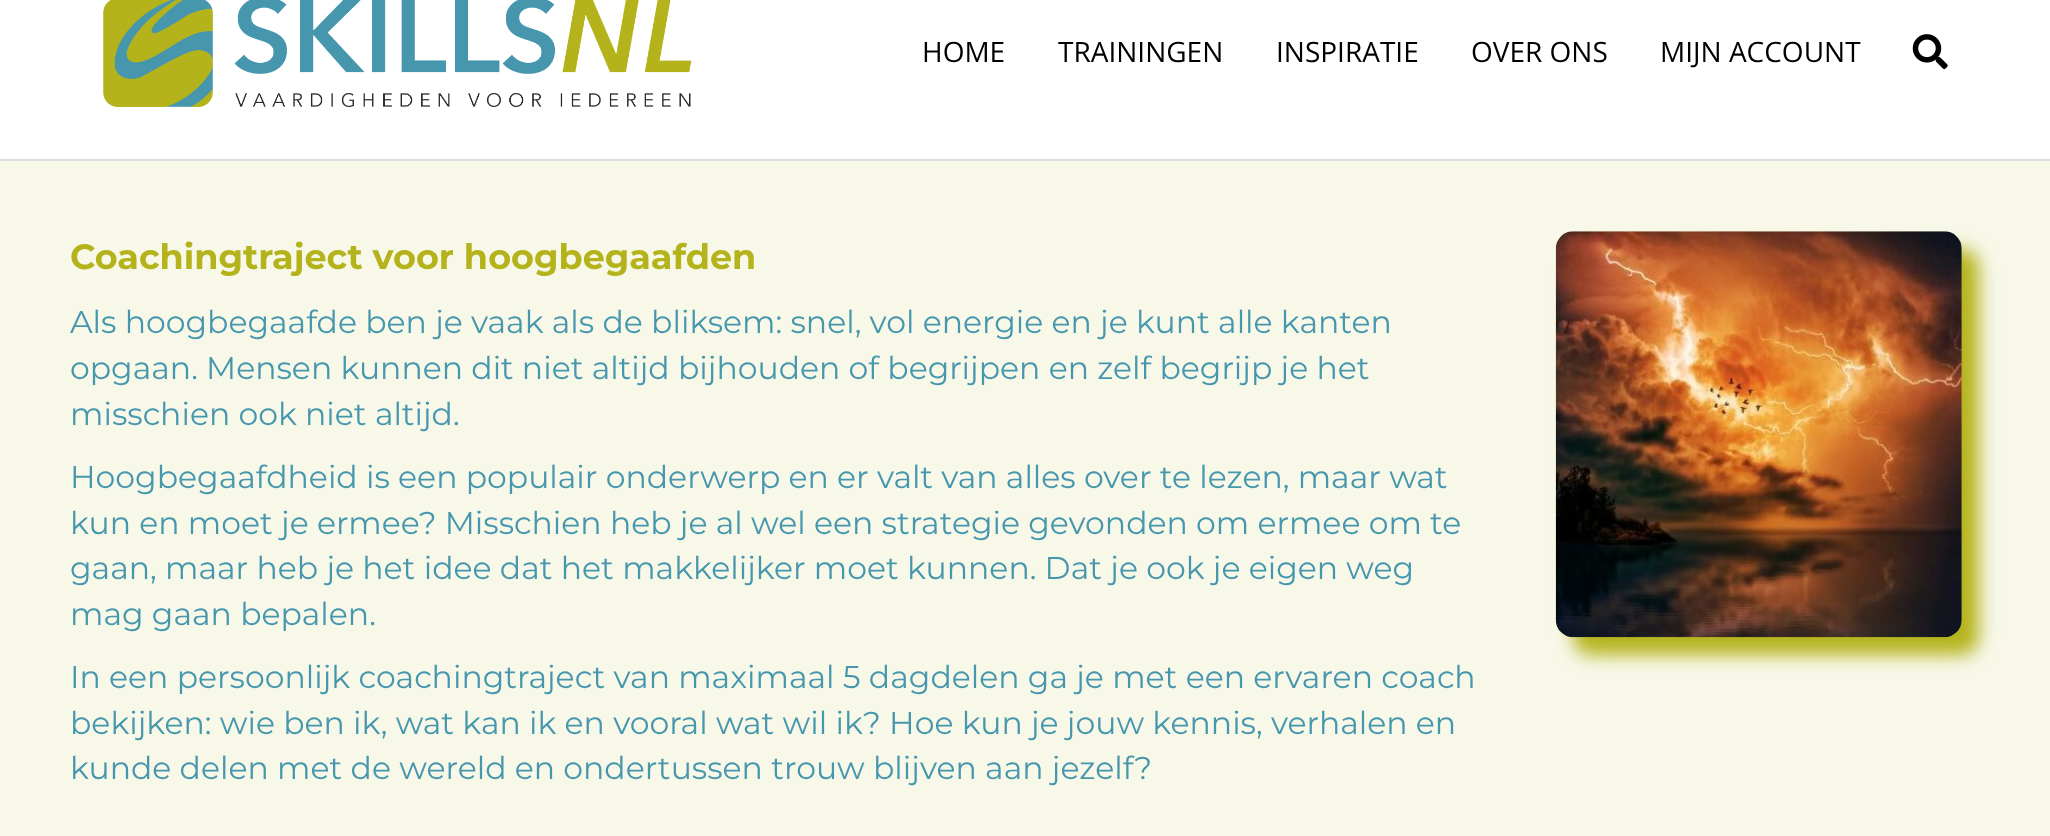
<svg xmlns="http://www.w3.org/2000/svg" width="2050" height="836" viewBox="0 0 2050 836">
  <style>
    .t1 { font: 28px Open Sans; fill: #000; }
    .t2 { font: bold 35px Montserrat; fill: #b4b31c; }
    .t3 { font: 31.5px Montserrat; fill: #4697ae; }
  </style>
  <rect width="100%" height="100%" fill="#fff"/>
  <rect x="0" y="159" width="2050" height="2" fill="#dedede"/>
  <image x="103" y="0" width="589" height="107" href="images/1.png"/>
  <text x="922" y="62" class="t1">HOME</text>
  <text x="1058" y="62" class="t1">TRAININGEN</text>
  <text x="1276" y="62" class="t1">INSPIRATIE</text>
  <text x="1471" y="62" class="t1">OVER ONS</text>
  <text x="1660" y="62" class="t1">MIJN ACCOUNT</text>
  <image x="1912" y="34" width="36" height="36" href="images/2.png"/>
  <rect x="0" y="161" width="2050" height="675" fill="#f8f8e9"/>
  <text x="70" y="269" class="t2">Coachingtraject voor hoogbegaafden</text>
  <text x="70" y="333" class="t3">Als hoogbegaafde ben je vaak als de bliksem: snel, vol energie en je kunt alle kanten</text>
  <text x="70" y="379" class="t3">opgaan. Mensen kunnen dit niet altijd bijhouden of begrijpen en zelf begrijp je het</text>
  <text x="70" y="425" class="t3">misschien ook niet altijd.</text>
  <text x="70" y="488" class="t3">Hoogbegaafdheid is een populair onderwerp en er valt van alles over te lezen, maar wat</text>
  <text x="70" y="534" class="t3">kun en moet je ermee? Misschien heb je al wel een strategie gevonden om ermee om te</text>
  <text x="70" y="579" class="t3">gaan, maar heb je het idee dat het makkelijker moet kunnen. Dat je ook je eigen weg</text>
  <text x="70" y="625" class="t3">mag gaan bepalen.</text>
  <text x="70" y="688" class="t3">In een persoonlijk coachingtraject van maximaal 5 dagdelen ga je met een ervaren coach</text>
  <text x="70" y="734" class="t3">bekijken: wie ben ik, wat kan ik en vooral wat wil ik? Hoe kun je jouw kennis, verhalen en</text>
  <text x="70" y="779" class="t3">kunde delen met de wereld en ondertussen trouw blijven aan jezelf?</text>
  <rect x="1573" y="249" width="406" height="406" rx="18" fill="#b4b31c" filter="blur(9px)"/>
  <image x="1555" y="231" width="407" height="407" href="images/3.png"/>
</svg>
